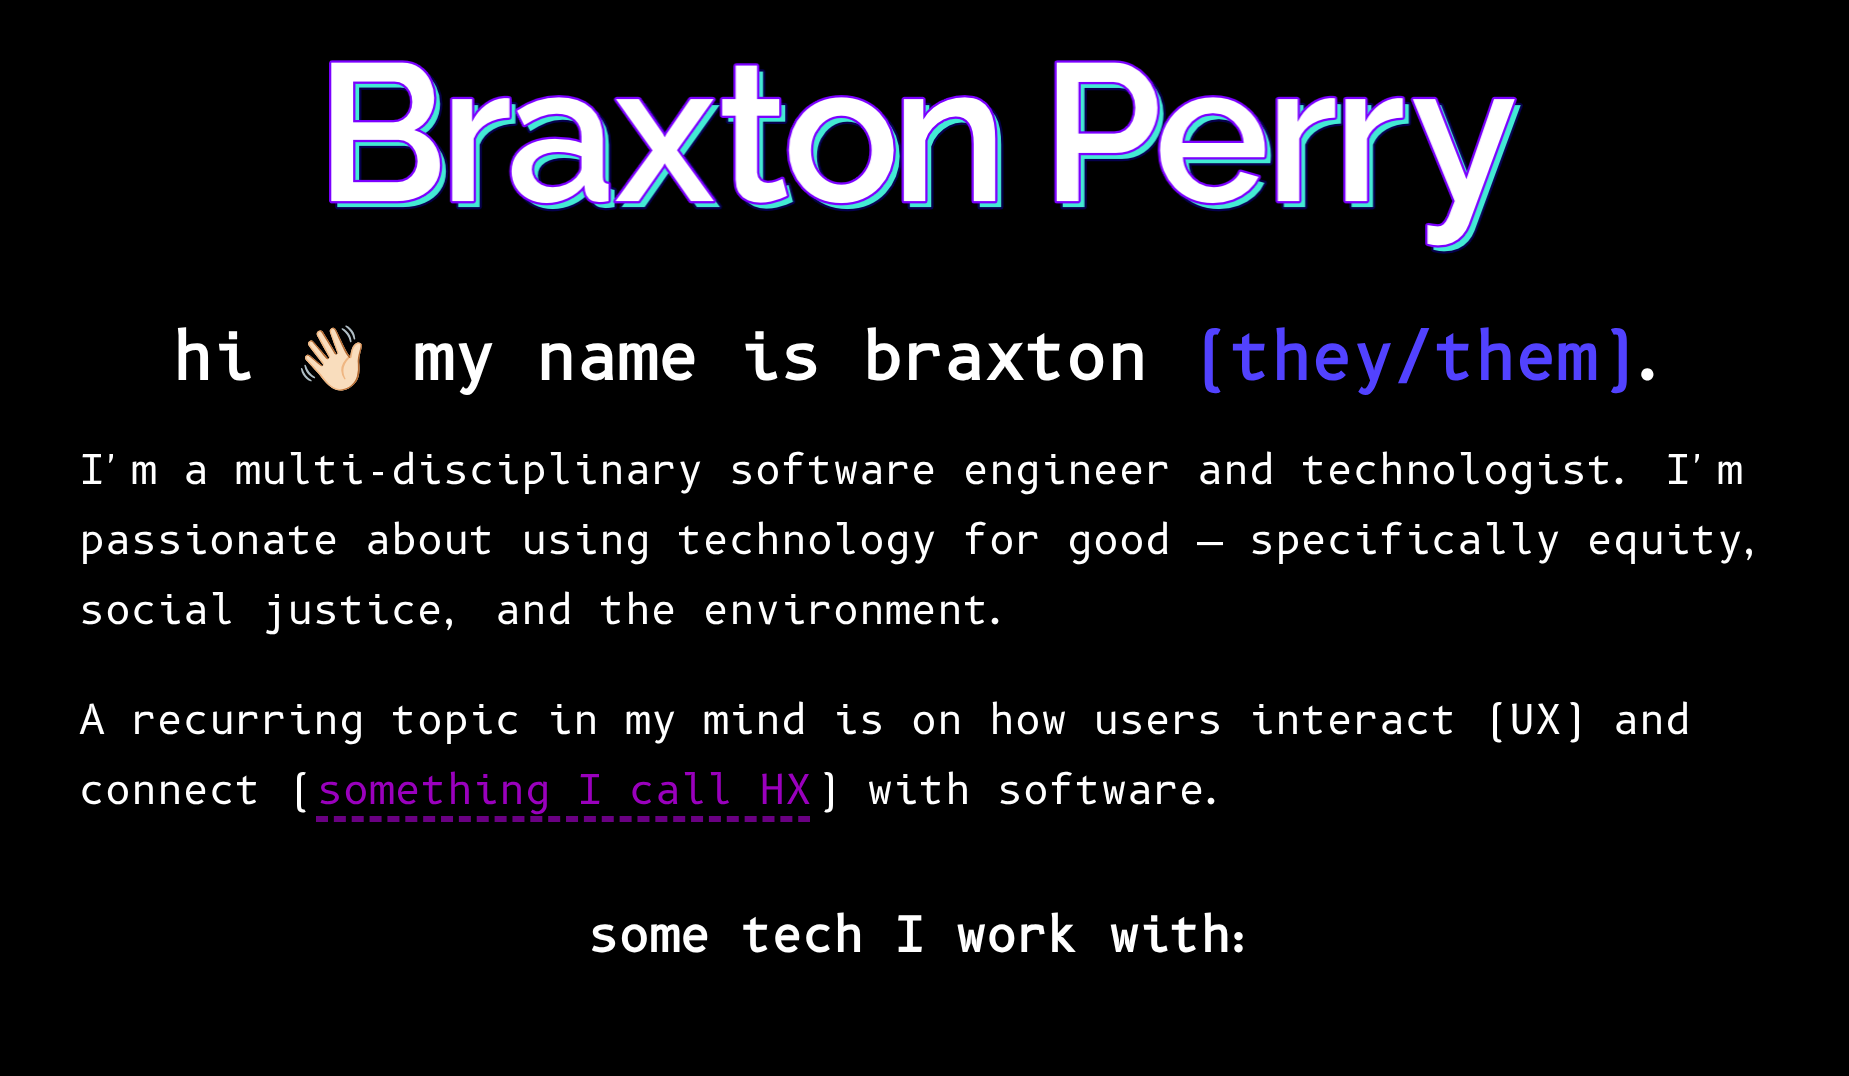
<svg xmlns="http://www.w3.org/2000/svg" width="1849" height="1076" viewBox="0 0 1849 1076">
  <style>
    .t1 { font: bold 62.75px 'B612 Mono'; fill: #fff; }
    .t2 { font: bold 62.75px Noto Color Emoji; fill: #fff; }
    .t3 { font: bold 62.75px 'B612 Mono'; fill: #5242ff; }
    .t4 { font: 40px 'B612 Mono'; fill: #fff; }
    .t5 { font: 40px 'B612 Mono'; fill: #9a00bd; }
    .t6 { font: bold 47.1px 'B612 Mono'; fill: #fff; }
  </style>
  <rect width="100%" height="100%" fill="#000"/>
  <image x="329" y="60" width="1194" height="194" href="images/1.png"/>
  <text x="172" y="380" class="t1">hi</text>
  <text x="294" y="380" class="t2">👋🏻</text>
  <text x="413" y="380" class="t1">my name is braxton</text>
  <text x="1189" y="380" class="t3">(they/them)</text>
  <text x="1637" y="380" class="t1">.</text>
  <text x="79" y="484" class="t4">I'm a multi-disciplinary software engineer and technologist. I'm</text>
  <text x="79" y="554" class="t4">passionate about using technology for good — specifically equity,</text>
  <text x="79" y="624" class="t4">social justice, and the environment.</text>
  <text x="79" y="734" class="t4">A recurring topic in my mind is on how users interact (UX) and</text>
  <text x="79" y="804" class="t4">connect (</text>
  <text x="317" y="804" class="t5">something I call HX</text>
  <path d="M316 819H810" fill="none" stroke="#6a0082" stroke-width="6" stroke-dasharray="12 5.86"/>
  <text x="815" y="804" class="t4">) with software.</text>
  <text x="588" y="952" class="t6">some tech I work with:</text>
</svg>
